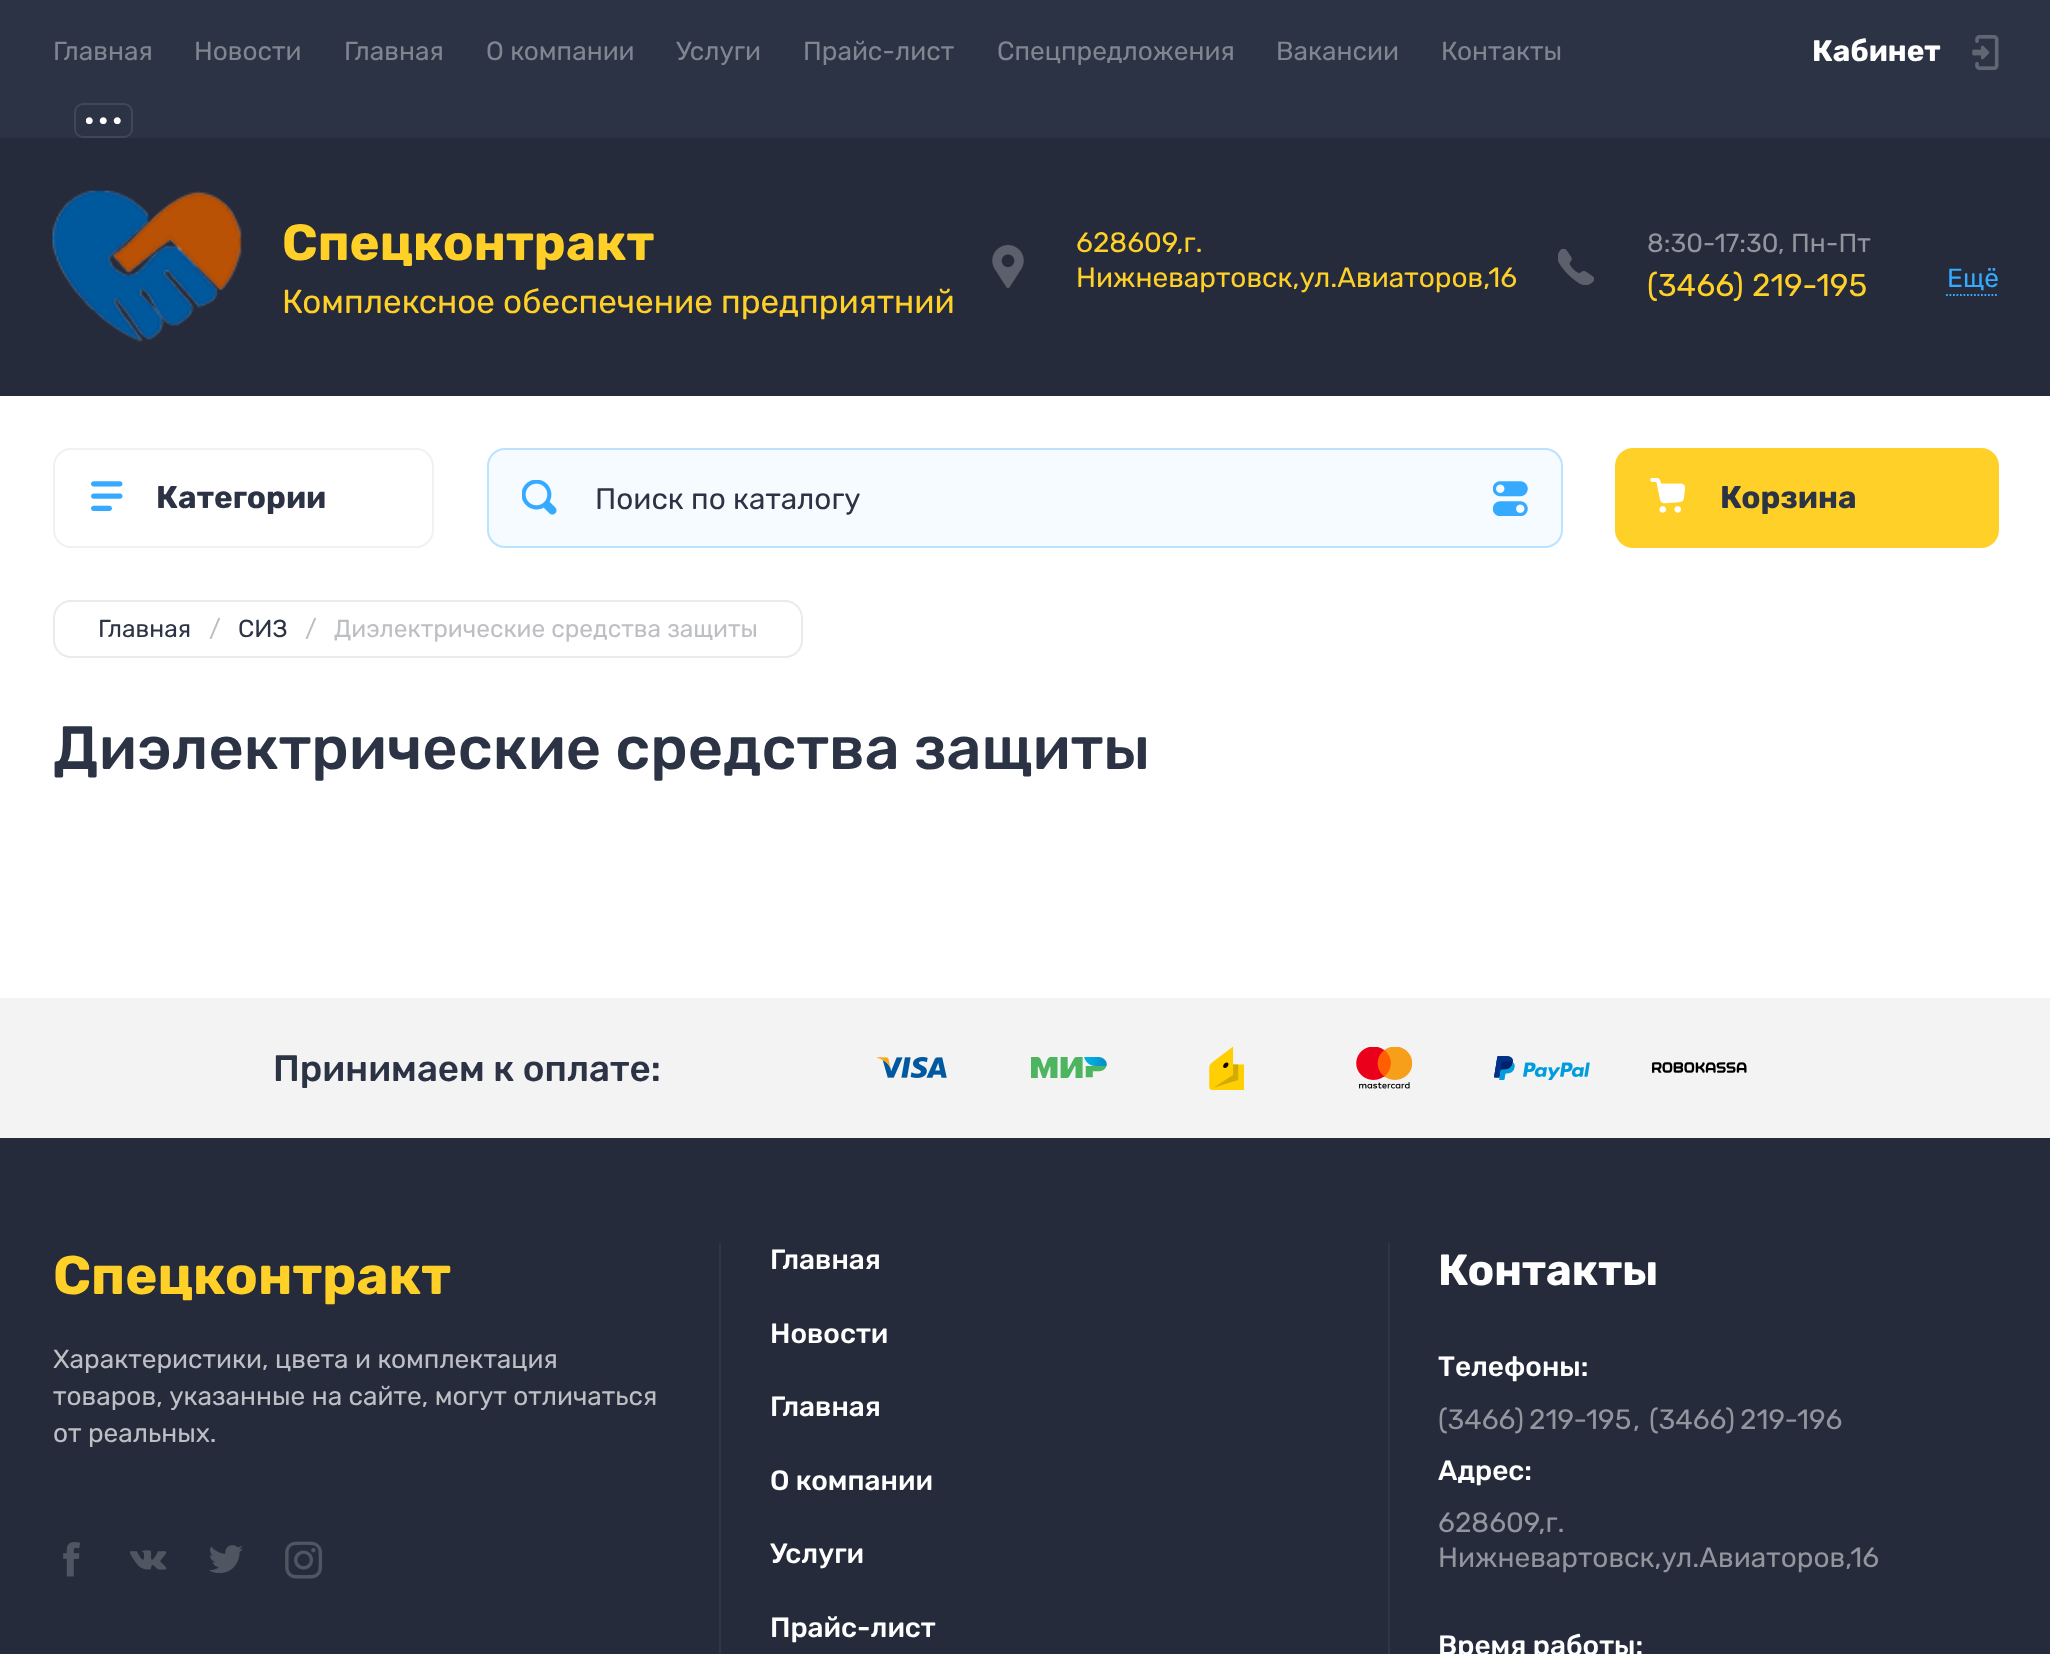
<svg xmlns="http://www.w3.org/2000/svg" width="2050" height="1654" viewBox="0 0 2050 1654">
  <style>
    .t1 { font: 26.25px Rubik; fill: #80858f; }
    .t2 { font: bold 29.75px Rubik; fill: #fff; }
    .t3 { font: bold 50.75px Rubik; fill: #ffd027; }
    .t4 { font: 33.25px Rubik; fill: #ffd027; }
    .t5 { font: 28px Rubik; fill: #ffd027; }
    .t6 { font: 26.25px Rubik; fill: #92959d; }
    .t7 { font: 31.5px Rubik; fill: #ffd027; }
    .t8 { font: 26.25px Rubik; fill: #35aaff; }
    .t9 { font: bold 31.5px Rubik; fill: #2c3345; }
    .t10 { font: 29.75px Rubik; fill: #2c3345; }
    .t11 { font: 24.5px Rubik; fill: #2c3345; }
    .t12 { font: 24.5px Rubik; fill: #bebfc4; }
    .t13 { font: 500 61.25px Rubik; fill: #2c3345; }
    .t14 { font: 500 36.75px Rubik; fill: #2c3345; }
    .t15 { font: bold 54.25px Rubik; fill: #ffd027; }
    .t16 { font: 26.25px Rubik; fill: #bebfc4; }
    .t17 { font: 500 28px Rubik; fill: #fff; }
    .t18 { font: bold 43.75px Rubik; fill: #fff; }
    .t19 { font: 28px Rubik; fill: #92959d; }
  </style>
  <rect width="100%" height="100%" fill="#fff"/>
  <rect x="0" y="0" width="2050" height="138" fill="#2c3345"/>
  <text x="53" y="60" class="t1">Главная</text>
  <text x="194" y="60" class="t1">Новости</text>
  <text x="344" y="60" class="t1">Главная</text>
  <text x="486" y="60" class="t1">О компании</text>
  <text x="676" y="60" class="t1">Услуги</text>
  <text x="803" y="60" class="t1">Прайс-лист</text>
  <text x="997" y="60" class="t1">Спецпредложения</text>
  <text x="1276" y="60" class="t1">Вакансии</text>
  <text x="1441" y="60" class="t1">Контакты</text>
  <image x="86" y="117" width="35" height="7" href="images/1.png"/>
  <rect x="75" y="104" width="57" height="33" rx="8" fill="none" stroke="#414758" stroke-width="2"/>
  <text x="1812" y="61" class="t2">Кабинет</text>
  <image x="1972" y="35" width="27" height="35" href="images/2.png"/>
  <rect x="0" y="138" width="2050" height="258" fill="#252b3b"/>
  <image x="52" y="190" width="190" height="152" href="images/3.png"/>
  <text x="282" y="260" class="t3">Спецконтракт</text>
  <text x="282" y="313" class="t4">Комплексное обеспечение предприятний</text>
  <image x="992" y="245" width="32" height="43" href="images/4.png"/>
  <text x="1076" y="252" class="t5">628609,г.</text>
  <text x="1076" y="287" class="t5">Нижневартовск,ул.Авиаторов,16</text>
  <image x="1558" y="249" width="36" height="36" href="images/5.png"/>
  <text x="1647" y="252" class="t6">8:30-17:30, Пн-Пт</text>
  <text x="1647" y="296" class="t7">(3466)</text>
  <text x="1752" y="296" class="t7">219-195</text>
  <path d="M1946 295H1998.5" fill="none" stroke="#35aaff" stroke-width="1.8" stroke-dasharray="1.75 1.75"/>
  <text x="1947" y="287" class="t8">Ещё</text>
  <rect x="54" y="449" width="379" height="98" rx="17" fill="none" stroke="#f0f1f2" stroke-width="2"/>
  <image x="91" y="481" width="32" height="30" href="images/6.png"/>
  <text x="156" y="508" class="t9">Категории</text>
  <rect x="487" y="448" width="1076" height="100" rx="18" fill="#f5fbff"/>
  <rect x="488" y="449" width="1074" height="98" rx="17" fill="none" stroke="#35aaff4d" stroke-width="2"/>
  <image x="522" y="480" width="35" height="35" href="images/7.png"/>
  <text x="595" y="509" class="t10">Поиск по каталогу</text>
  <image x="1493" y="481" width="35" height="35" href="images/8.png"/>
  <rect x="1615" y="448" width="384" height="100" rx="18" fill="#ffd027"/>
  <image x="1650" y="478" width="35" height="35" href="images/9.png"/>
  <text x="1720" y="508" class="t9">Корзина</text>
  <rect x="54" y="601" width="748" height="56" rx="17" fill="none" stroke="#eaebec" stroke-width="2"/>
  <text x="98" y="637" class="t11">Главная</text>
  <text x="209" y="637" class="t12">/</text>
  <text x="238" y="637" class="t11">СИЗ</text>
  <text x="305" y="637" class="t12">/</text>
  <text x="334" y="637" class="t12">Диэлектрические средства защиты</text>
  <text x="53" y="769" class="t13">Диэлектрические средства защиты</text>
  <rect x="0" y="998" width="2050" height="140" fill="#f3f3f4"/>
  <text x="273" y="1081" class="t14">Принимаем к оплате:</text>
  <image x="877" y="1057" width="70" height="21" href="images/10.png"/>
  <image x="1031" y="1057" width="76" height="21" href="images/11.png"/>
  <image x="1209" y="1047" width="35" height="43" href="images/12.png"/>
  <image x="1356" y="1047" width="56" height="42" href="images/13.png"/>
  <image x="1494" y="1056" width="96" height="24" href="images/14.png"/>
  <image x="1652" y="1062" width="95" height="11" href="images/15.png"/>
  <rect x="0" y="1138" width="2050" height="516" fill="#252b3b"/>
  <rect x="719" y="1243" width="2" height="411" fill="#303645"/>
  <text x="53" y="1294" class="t15">Спецконтракт</text>
  <text x="53" y="1368" class="t16">Характеристики, цвета и комплектация</text>
  <text x="53" y="1405" class="t16">товаров, указанные на сайте, могут отличаться</text>
  <text x="53" y="1442" class="t16">от реальных.</text>
  <image x="63" y="1542" width="17" height="35" href="images/16.png"/>
  <image x="130" y="1550" width="37" height="20" href="images/17.png"/>
  <image x="209" y="1545" width="34" height="28" href="images/18.png"/>
  <image x="285" y="1541" width="37" height="38" href="images/19.png"/>
  <rect x="1388" y="1243" width="2" height="411" fill="#303645"/>
  <text x="770" y="1269" class="t17">Главная</text>
  <text x="770" y="1343" class="t17">Новости</text>
  <text x="770" y="1416" class="t17">Главная</text>
  <text x="770" y="1490" class="t17">О компании</text>
  <text x="770" y="1563" class="t17">Услуги</text>
  <text x="770" y="1637" class="t17">Прайс-лист</text>
  <text x="1438" y="1285" class="t18">Контакты</text>
  <text x="1438" y="1376" class="t17">Телефоны:</text>
  <text x="1438" y="1429" class="t19">(3466)</text>
  <text x="1529" y="1429" class="t19">219-195</text>
  <text x="1633" y="1429" class="t19">,</text>
  <text x="1649" y="1429" class="t19">(3466)</text>
  <text x="1740" y="1429" class="t19">219-196</text>
  <text x="1438" y="1480" class="t17">Адрес:</text>
  <text x="1438" y="1532" class="t19">628609,г.</text>
  <text x="1438" y="1567" class="t19">Нижневартовск,ул.Авиаторов,16</text>
  <text x="1438" y="1655" class="t17">Время работы:</text>
</svg>
